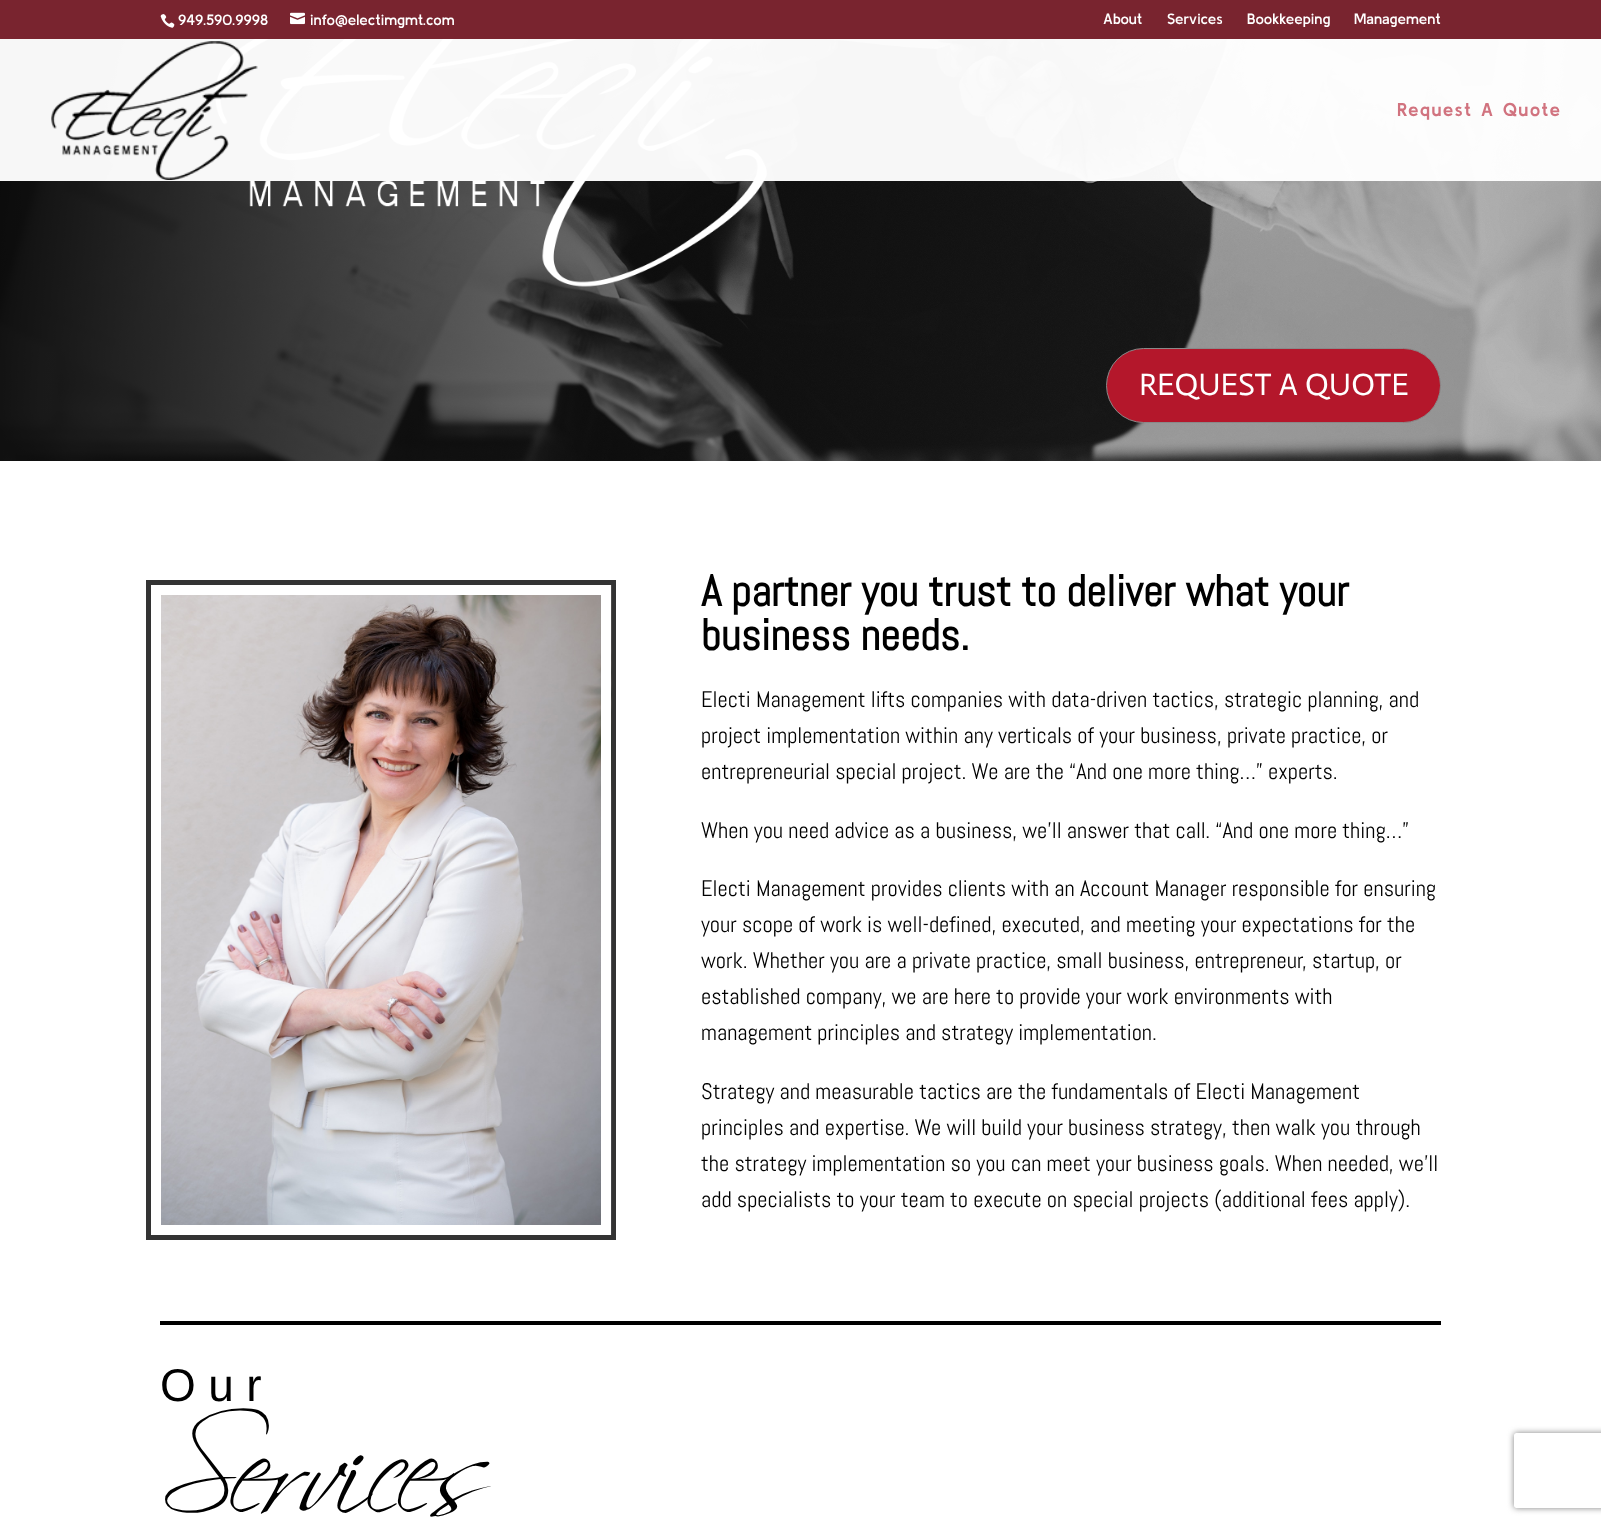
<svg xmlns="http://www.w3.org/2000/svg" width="1601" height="1524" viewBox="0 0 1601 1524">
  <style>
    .t1 { font: 600 15px Kulim Park; fill: #fff; }
    .t2 { font: bold 18.75px Kulim Park; letter-spacing: 1.25px; fill: #d1737f; }
    .t3 { font: 31.25px Actor; fill: #fff; }
    .t4 { font: bold 43.75px Abel; fill: #000; }
    .t5 { font: 22.5px Abel; fill: #000; }
    .t6 { font: 46px Liberation Sans; letter-spacing: 12.5px; fill: #000; }
    .t7 { font: 122.5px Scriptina; fill: #000; }
  </style>
  <defs>
    <clipPath id="clip1"><path d="M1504 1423H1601V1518H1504ZM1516.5 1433H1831.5C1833 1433 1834 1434 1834 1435.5V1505.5C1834 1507 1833 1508 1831.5 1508H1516.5C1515 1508 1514 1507 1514 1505.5V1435.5C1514 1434 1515 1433 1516.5 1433Z" clip-rule="evenodd"/></clipPath>
  </defs>
  <rect width="100%" height="100%" fill="#fff"/>
  <rect x="0" y="0" width="1601" height="39" fill="#79242f"/>
  <image x="160" y="14" width="15" height="14" href="images/1.png"/>
  <text x="178" y="25" class="t1">949.590.9998</text>
  <image x="290" y="12" width="15" height="13" href="images/2.png"/>
  <text x="310" y="25" class="t1">info@electimgmt.com</text>
  <text x="1103" y="24" class="t1">About</text>
  <text x="1167" y="24" class="t1">Services</text>
  <text x="1247" y="24" class="t1">Bookkeeping</text>
  <text x="1354" y="24" class="t1">Management</text>
  <image x="0" y="39" width="1601" height="422" href="images/4.png"/>
  <image x="215" y="39" width="553" height="248" href="images/5.png"/>
  <rect x="0" y="39" width="1601" height="142" fill="#fffffff7"/>
  <image x="51" y="41" width="207" height="139" href="images/3.png"/>
  <text x="1397" y="116" class="t2">Request A Quote</text>
  <rect x="1106.5" y="348.5" width="334" height="74" rx="37" fill="#b4172b" stroke="#898989"/>
  <text x="1139" y="395" class="t3">REQUEST A QUOTE</text>
  <rect x="148.5" y="582.5" width="465" height="655" fill="none" stroke="#333" stroke-width="5"/>
  <image x="161" y="585" width="451" height="650" href="images/6.png"/>
  <rect x="156" y="590" width="450" height="640" fill="none" stroke="#fff" stroke-width="10"/>
  <text x="701" y="606" class="t4">A partner you trust to deliver what your</text>
  <text x="701" y="650" class="t4">business needs.</text>
  <text x="701" y="707" class="t5">Electi Management lifts companies with data-driven tactics, strategic planning, and</text>
  <text x="701" y="743" class="t5">project implementation within any verticals of your business, private practice, or</text>
  <text x="701" y="779" class="t5">entrepreneurial special project. We are the “And one more thing…” experts.</text>
  <text x="701" y="838" class="t5">When you need advice as a business, we’ll answer that call. “And one more thing…”</text>
  <text x="701" y="896" class="t5">Electi Management provides clients with an Account Manager responsible for ensuring</text>
  <text x="701" y="932" class="t5">your scope of work is well-defined, executed, and meeting your expectations for the</text>
  <text x="701" y="968" class="t5">work. Whether you are a private practice, small business, entrepreneur, startup, or</text>
  <text x="701" y="1004" class="t5">established company, we are here to provide your work environments with</text>
  <text x="701" y="1040" class="t5">management principles and strategy implementation.</text>
  <text x="701" y="1099" class="t5">Strategy and measurable tactics are the fundamentals of Electi Management</text>
  <text x="701" y="1135" class="t5">principles and expertise. We will build your business strategy, then walk you through</text>
  <text x="701" y="1171" class="t5">the strategy implementation so you can meet your business goals. When needed, we’ll</text>
  <text x="701" y="1207" class="t5">add specialists to your team to execute on special projects (additional fees apply).</text>
  <rect x="160" y="1321" width="1281" height="4" fill="#000"/>
  <text x="160" y="1401" class="t6">Our</text>
  <text x="160" y="1512" class="t7">Services</text>
  <g clip-path="url(#clip1)">
    <rect x="1514" y="1433" width="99" height="75" rx="2.5" fill="#808080" filter="blur(3px)"/>
  </g>
</svg>
